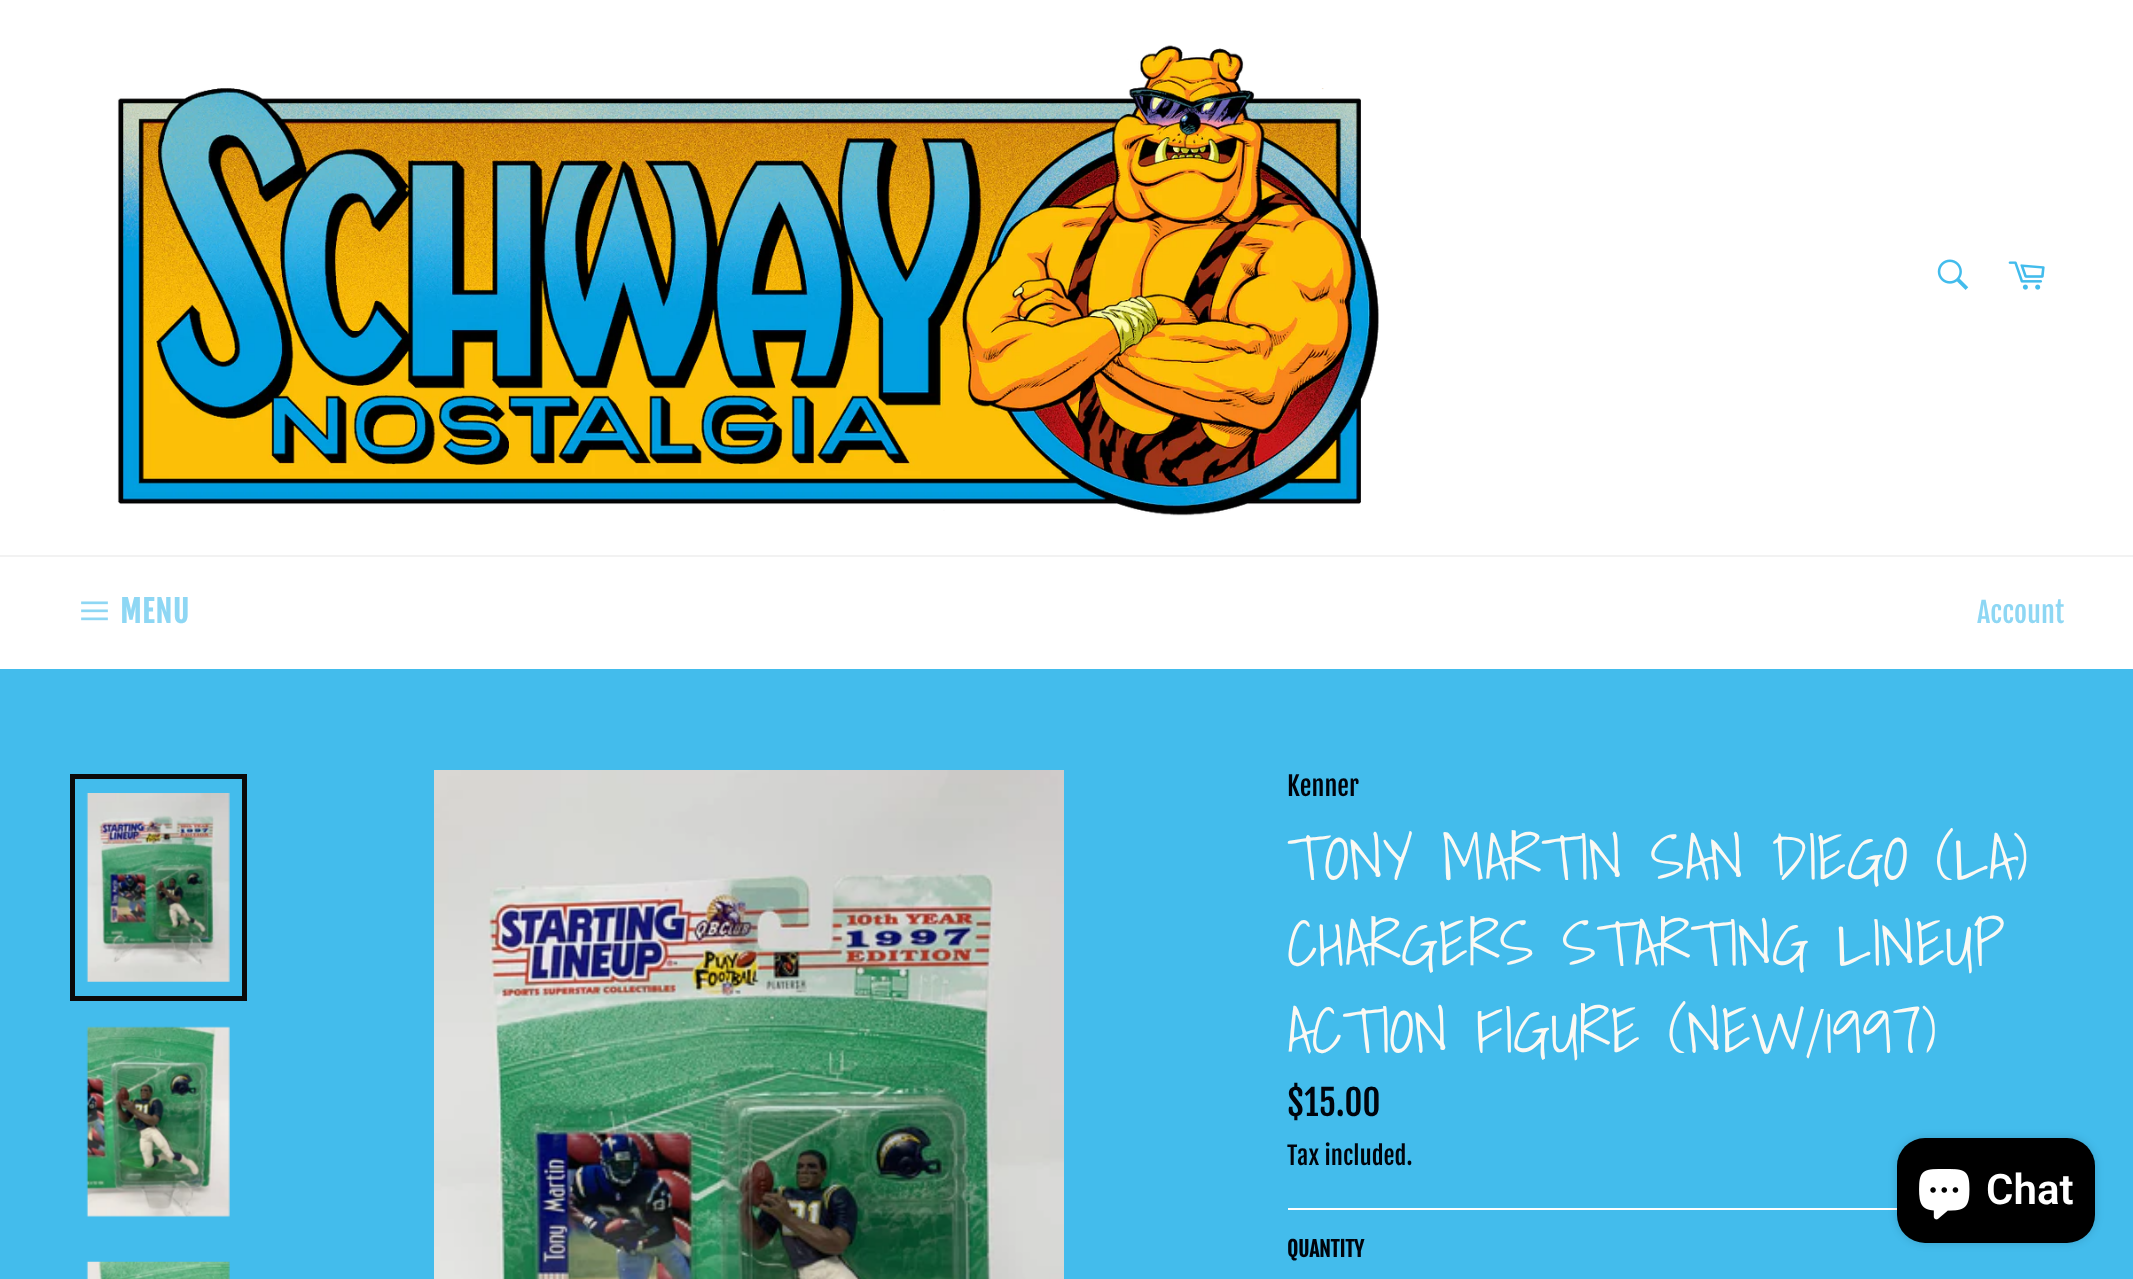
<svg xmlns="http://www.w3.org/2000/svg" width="2133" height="1279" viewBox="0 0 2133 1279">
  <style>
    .t1 { font: bold 30px Fjalla One; letter-spacing: 1px; fill: #8ed7f4; }
    .t2 { font: 28px Fjalla One; fill: #8ed7f4; }
    .t3 { font: 26px Fjalla One; fill: #00040c; }
    .t4 { font: 63px Shadows Into Light; fill: #faf9f4; }
    .t5 { font: 35px Fjalla One; fill: #00040c; }
    .t6 { font: 24.5px Fjalla One; fill: #00040c; }
    .t7 { font: bold 21px Fjalla One; fill: #00040c; }
    .t8 { font: 600 42px Roboto; fill: #fff; }
  </style>
  <rect width="100%" height="100%" fill="#fff"/>
  <image x="117" y="45" width="1262" height="471" href="images/1.png"/>
  <image x="1937" y="259" width="32" height="31" href="images/2.png"/>
  <image x="2008" y="261" width="37" height="29" href="images/3.png"/>
  <rect x="0" y="555" width="2133" height="2" fill="#f2f2f2"/>
  <image x="81" y="601" width="27" height="20" href="images/4.png"/>
  <text x="120" y="623" class="t1">MENU</text>
  <text x="1977" y="623" class="t2">Account</text>
  <rect x="0" y="669" width="2133" height="610" fill="#43bcec"/>
  <image x="86" y="793" width="144" height="189" href="images/5.png"/>
  <rect x="72.5" y="776.5" width="172" height="222" fill="none" stroke="#0c0a0a" stroke-width="5"/>
  <image x="86" y="1026" width="144" height="191" href="images/6.png"/>
  <image x="86" y="1261" width="144" height="18" href="images/7.png"/>
  <image x="434" y="770" width="630" height="509" href="images/8.png"/>
  <text x="1287" y="796" class="t3">Kenner</text>
  <text x="1287" y="880" class="t4">TONY MARTIN SAN DIEGO (LA)</text>
  <text x="1287" y="966" class="t4">CHARGERS STARTING LINEUP</text>
  <text x="1287" y="1053" class="t4">ACTION FIGURE (NEW/1997)</text>
  <text x="1287" y="1116" class="t5">$15.00</text>
  <text x="1287" y="1165" class="t6">Tax included.</text>
  <rect x="1288" y="1208" width="609" height="2" fill="#fff"/>
  <text x="1287" y="1257" class="t7">QUANTITY</text>
  <rect x="1897" y="1138" width="198" height="105" rx="28" fill="#00000026" filter="blur(4.5px)"/>
  <rect x="1897" y="1138" width="198" height="105" rx="28" fill="#000"/>
  <image x="1919" y="1169" width="51" height="51" href="images/9.png"/>
  <text x="1986" y="1204" class="t8">Chat</text>
</svg>
